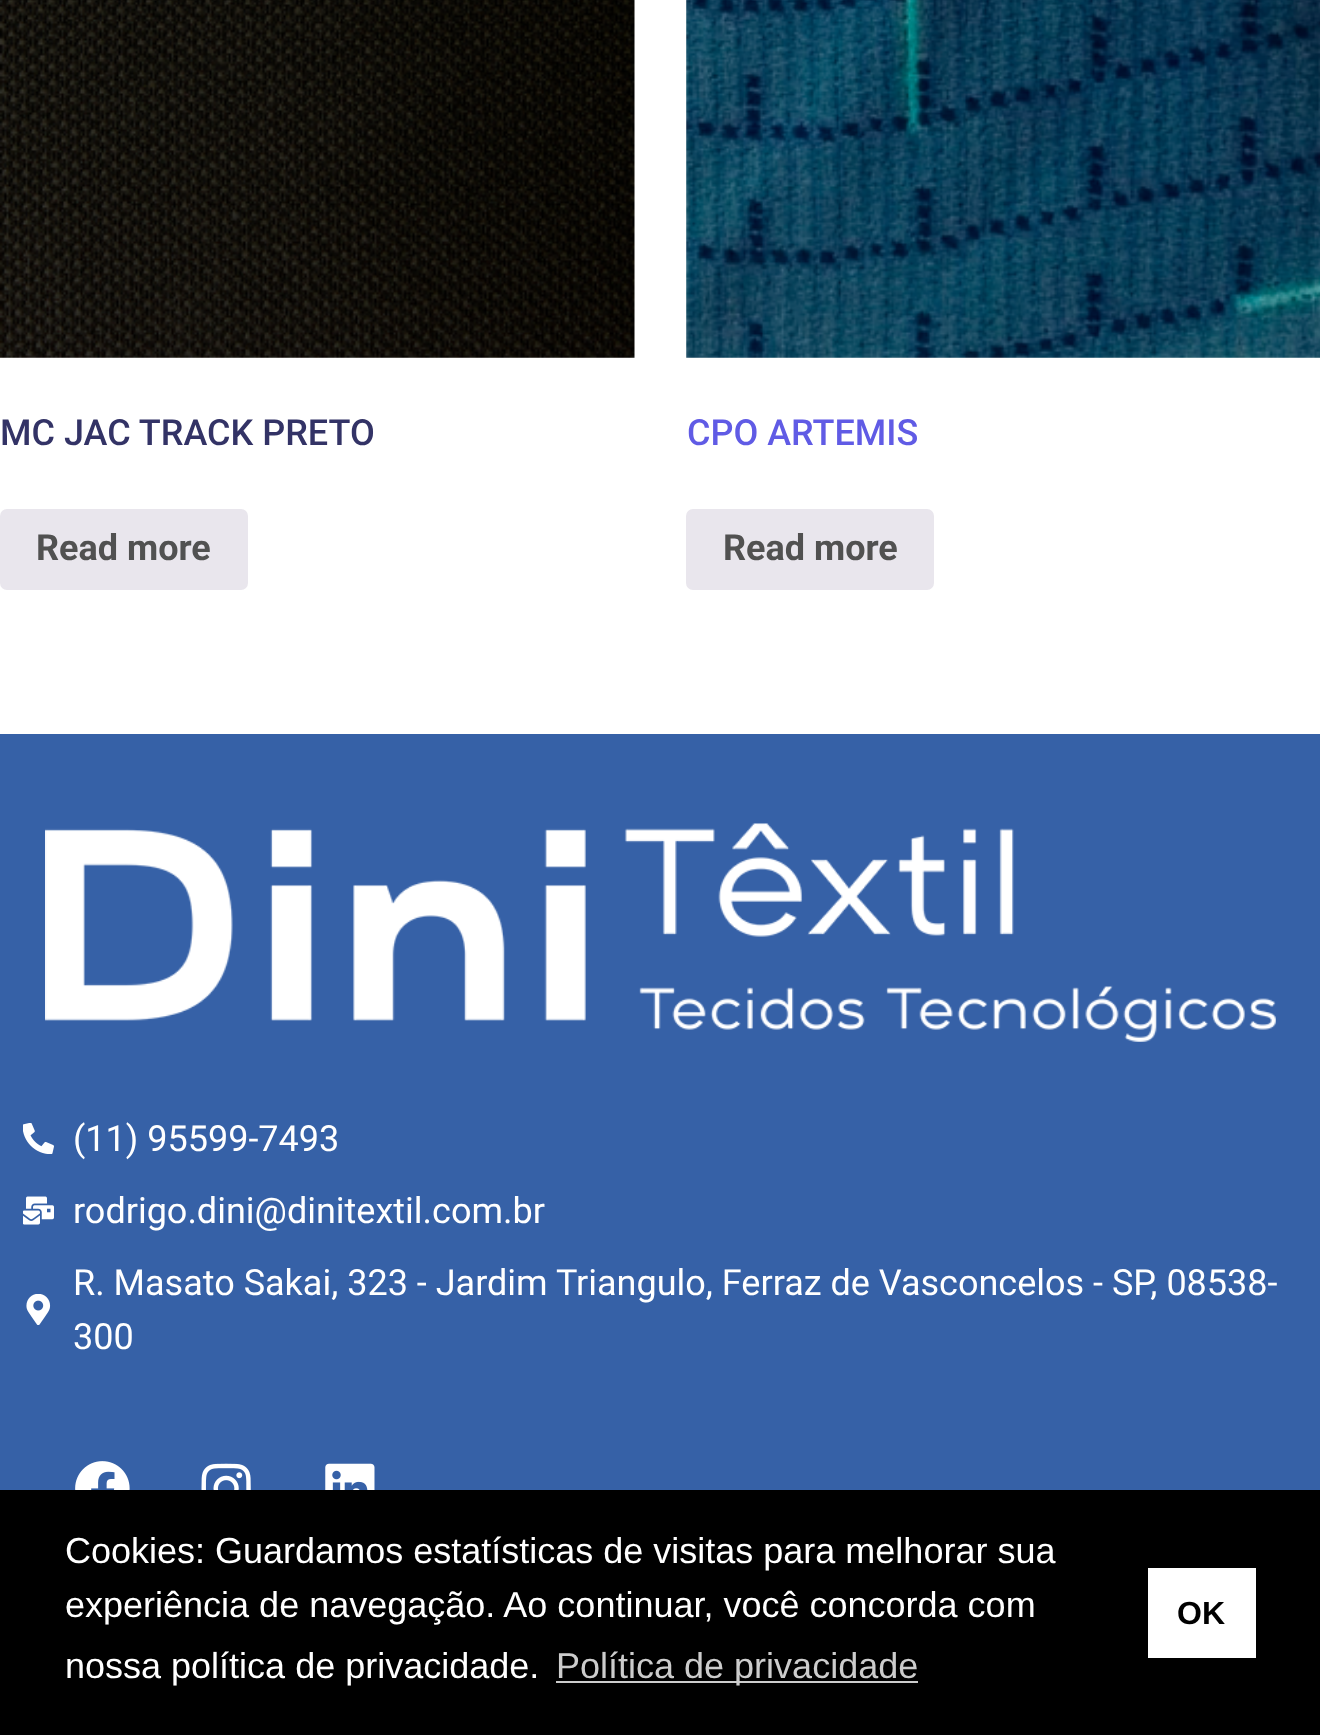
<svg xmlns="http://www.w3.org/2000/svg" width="1320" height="1735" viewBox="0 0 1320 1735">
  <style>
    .t1 { font: 500 36px Roboto; fill: #336; }
    .t2 { font: bold 36px Roboto; fill: #515151; }
    .t3 { font: 500 36px Roboto; fill: #605be5; }
    .t4 { font: 36px Roboto; fill: #fff; }
    .t5 { font: 36px Liberation Sans; fill: #fff; }
    .t6 { font: 36px Liberation Sans; fill: #ccc; }
    .t7 { font: bold 32px Liberation Sans; fill: #000; }
  </style>
  <rect width="100%" height="100%" fill="#fff"/>
  <image x="0" y="0" width="635" height="358" href="images/1.png"/>
  <text x="0" y="445" class="t1">MC JAC TRACK PRETO</text>
  <rect x="0" y="509" width="248" height="81" rx="7" fill="#e9e6ed"/>
  <text x="36" y="560" class="t2">Read more</text>
  <image x="686" y="0" width="634" height="358" href="images/2.png"/>
  <text x="687" y="445" class="t3">CPO ARTEMIS</text>
  <rect x="686" y="509" width="248" height="81" rx="7" fill="#e9e6ed"/>
  <text x="723" y="560" class="t2">Read more</text>
  <rect x="0" y="734" width="1320" height="756" fill="#3661a7"/>
  <image x="45" y="823" width="1231" height="219" href="images/3.png"/>
  <image x="23" y="1123" width="31" height="31" href="images/4.png"/>
  <text x="73" y="1151" class="t4">(11) 95599-7493</text>
  <image x="23" y="1196" width="31" height="29" href="images/5.png"/>
  <text x="73" y="1223" class="t4">rodrigo.dini@dinitextil.com.br</text>
  <image x="26" y="1294" width="25" height="31" href="images/6.png"/>
  <text x="73" y="1295" class="t4">R. Masato Sakai, 323 - Jardim Triangulo, Ferraz de Vasconcelos - SP, 08538-</text>
  <text x="73" y="1349" class="t4">300</text>
  <image x="75" y="1461" width="55" height="29" href="images/7.png"/>
  <image x="201" y="1463" width="50" height="27" href="images/8.png"/>
  <image x="325" y="1463" width="50" height="27" href="images/9.png"/>
  <rect x="0" y="1490" width="1320" height="245" fill="#000"/>
  <text x="65" y="1563" class="t5">Cookies: Guardamos estatísticas de visitas para melhorar sua</text>
  <text x="65" y="1617" class="t5">experiência de navegação. Ao continuar, você concorda com</text>
  <text x="65" y="1678" class="t5">nossa política de privacidade.</text>
  <rect x="556" y="1681" width="362" height="2" fill="#ccc"/>
  <text x="556" y="1678" class="t6">Política de privacidade</text>
  <rect x="1148" y="1568" width="108" height="90" fill="#fff"/>
  <text x="1177" y="1624" class="t7">OK</text>
</svg>
